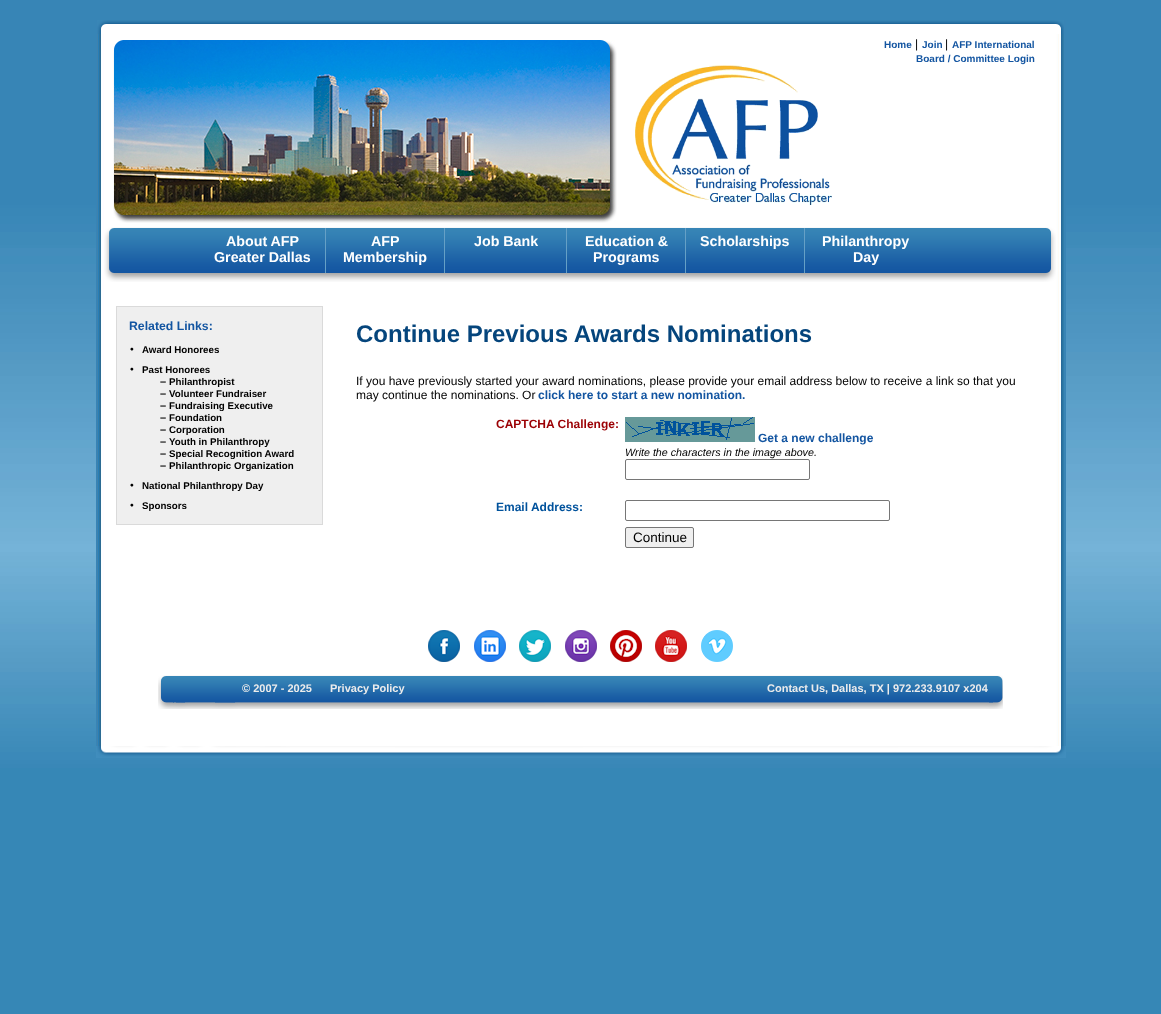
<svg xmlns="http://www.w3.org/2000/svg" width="1161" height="1014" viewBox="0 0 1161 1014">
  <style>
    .t1 { font: bold 10px Liberation Sans; fill: #1355a1; }
    .t2 { font: 12px Liberation Sans; fill: #000; }
    .t3 { font: bold 14.25px Liberation Sans; fill: #fff; }
    .t4 { font: bold 12.25px Liberation Sans; fill: #1355a1; }
    .t5 { font: bold 9.75px Liberation Sans; fill: #000; }
    .t6 { font: bold 11px Liberation Sans; fill: #000; }
    .t7 { font: bold 24px Liberation Sans; fill: #05457c; }
    .t8 { font: bold 12px Liberation Sans; fill: #1355a1; }
    .t9 { font: bold 12px Liberation Sans; fill: #9b0004; }
    .t10 { font: italic 10.7px Liberation Sans; fill: #000; }
    .t11 { font: bold 12px Liberation Sans; fill: #00529c; }
    .t12 { font: 13.5px Liberation Sans; fill: #000; }
    .t13 { font: bold 11px Liberation Sans; fill: #ececec; }
  </style>
  <rect width="100%" height="100%" fill="#fff"/>
  <image x="0" y="0" width="1161" height="1014" href="images/1.png"/>
  <image x="96" y="20" width="970" height="726" href="images/2.png"/>
  <image x="97" y="20" width="967" height="14" href="images/3.png"/>
  <image x="113" y="40" width="504" height="183" href="images/4.png"/>
  <text x="884" y="48" class="t1">Home</text>
  <text x="915" y="48" class="t2">|</text>
  <text x="922" y="48" class="t1">Join</text>
  <text x="945" y="48" class="t2">|</text>
  <text x="952" y="48" class="t1">AFP International</text>
  <text x="916" y="62" class="t1">Board / Committee Login</text>
  <image x="635" y="65" width="197" height="140" href="images/5.png"/>
  <image x="104" y="227" width="952" height="55" href="images/6.png"/>
  <rect x="325" y="228" width="1" height="45" fill="#65a0c6"/>
  <text x="226" y="246" class="t3">About AFP</text>
  <text x="214" y="262" class="t3">Greater Dallas</text>
  <rect x="444" y="228" width="1" height="45" fill="#65a0c6"/>
  <text x="371" y="246" class="t3">AFP</text>
  <text x="343" y="262" class="t3">Membership</text>
  <rect x="566" y="228" width="1" height="45" fill="#65a0c6"/>
  <text x="474" y="246" class="t3">Job Bank</text>
  <rect x="685" y="228" width="1" height="45" fill="#65a0c6"/>
  <text x="585" y="246" class="t3">Education &amp;</text>
  <text x="593" y="262" class="t3">Programs</text>
  <rect x="804" y="228" width="1" height="45" fill="#65a0c6"/>
  <text x="700" y="246" class="t3">Scholarships</text>
  <text x="822" y="246" class="t3">Philanthropy</text>
  <text x="853" y="262" class="t3">Day</text>
  <rect x="116.5" y="306.5" width="206" height="218" fill="#efefef" stroke="#dadada"/>
  <text x="129" y="330" class="t4">Related Links:</text>
  <image x="130" y="347" width="4" height="4" href="images/7.png"/>
  <text x="142" y="353" class="t5">Award Honorees</text>
  <image x="130" y="367" width="4" height="4" href="images/7.png"/>
  <text x="142" y="373" class="t5">Past Honorees</text>
  <text x="160" y="385" class="t6">–</text>
  <text x="169" y="385" class="t5">Philanthropist</text>
  <text x="160" y="397" class="t6">–</text>
  <text x="169" y="397" class="t5">Volunteer Fundraiser</text>
  <text x="160" y="409" class="t6">–</text>
  <text x="169" y="409" class="t5">Fundraising Executive</text>
  <text x="160" y="421" class="t6">–</text>
  <text x="169" y="421" class="t5">Foundation</text>
  <text x="160" y="433" class="t6">–</text>
  <text x="169" y="433" class="t5">Corporation</text>
  <text x="160" y="445" class="t6">–</text>
  <text x="169" y="445" class="t5">Youth in Philanthropy</text>
  <text x="160" y="457" class="t6">–</text>
  <text x="169" y="457" class="t5">Special Recognition Award</text>
  <text x="160" y="469" class="t6">–</text>
  <text x="169" y="469" class="t5">Philanthropic Organization</text>
  <image x="130" y="483" width="4" height="4" href="images/7.png"/>
  <text x="142" y="489" class="t5">National Philanthropy Day</text>
  <image x="130" y="503" width="4" height="4" href="images/7.png"/>
  <text x="142" y="509" class="t5">Sponsors</text>
  <text x="356" y="342" class="t7">Continue Previous Awards Nominations</text>
  <text x="356" y="385" class="t2">If you have previously started your award nominations, please provide your email address below to receive a link so that you</text>
  <text x="356" y="399" class="t2">may continue the nominations. Or</text>
  <text x="538" y="399" class="t8">click here to start a new nomination.</text>
  <text x="496" y="428" class="t9">CAPTCHA Challenge:</text>
  <image x="625" y="417" width="130" height="25" href="images/8.png"/>
  <text x="758" y="442" class="t8">Get a new challenge</text>
  <text x="625" y="456" class="t10">Write the characters in the image above.</text>
  <rect x="625.5" y="459.5" width="184" height="20" rx="1.5" fill="none" stroke="#767676"/>
  <text x="496" y="511" class="t11">Email Address:</text>
  <rect x="625.5" y="500.5" width="264" height="20" rx="1.5" fill="none" stroke="#767676"/>
  <rect x="625.5" y="527.5" width="68" height="20" rx="1.5" fill="#efefef" stroke="#767676"/>
  <text x="633" y="542" class="t12">Continue</text>
  <image x="428" y="630" width="32" height="32" href="images/9.png"/>
  <image x="474" y="630" width="32" height="32" href="images/10.png"/>
  <image x="519" y="630" width="32" height="32" href="images/11.png"/>
  <image x="565" y="630" width="32" height="32" href="images/12.png"/>
  <image x="610" y="630" width="32" height="32" href="images/13.png"/>
  <image x="655" y="630" width="32" height="32" href="images/14.png"/>
  <image x="701" y="630" width="32" height="32" href="images/15.png"/>
  <image x="158" y="675" width="845" height="34" href="images/16.png"/>
  <text x="242" y="692" class="t13">© 2007 - 2025</text>
  <text x="330" y="692" class="t13">Privacy Policy</text>
  <text x="767" y="692" class="t13">Contact Us, Dallas, TX | 972.233.9107 x204</text>
  <image x="96" y="746" width="970" height="12" href="images/17.png"/>
</svg>
